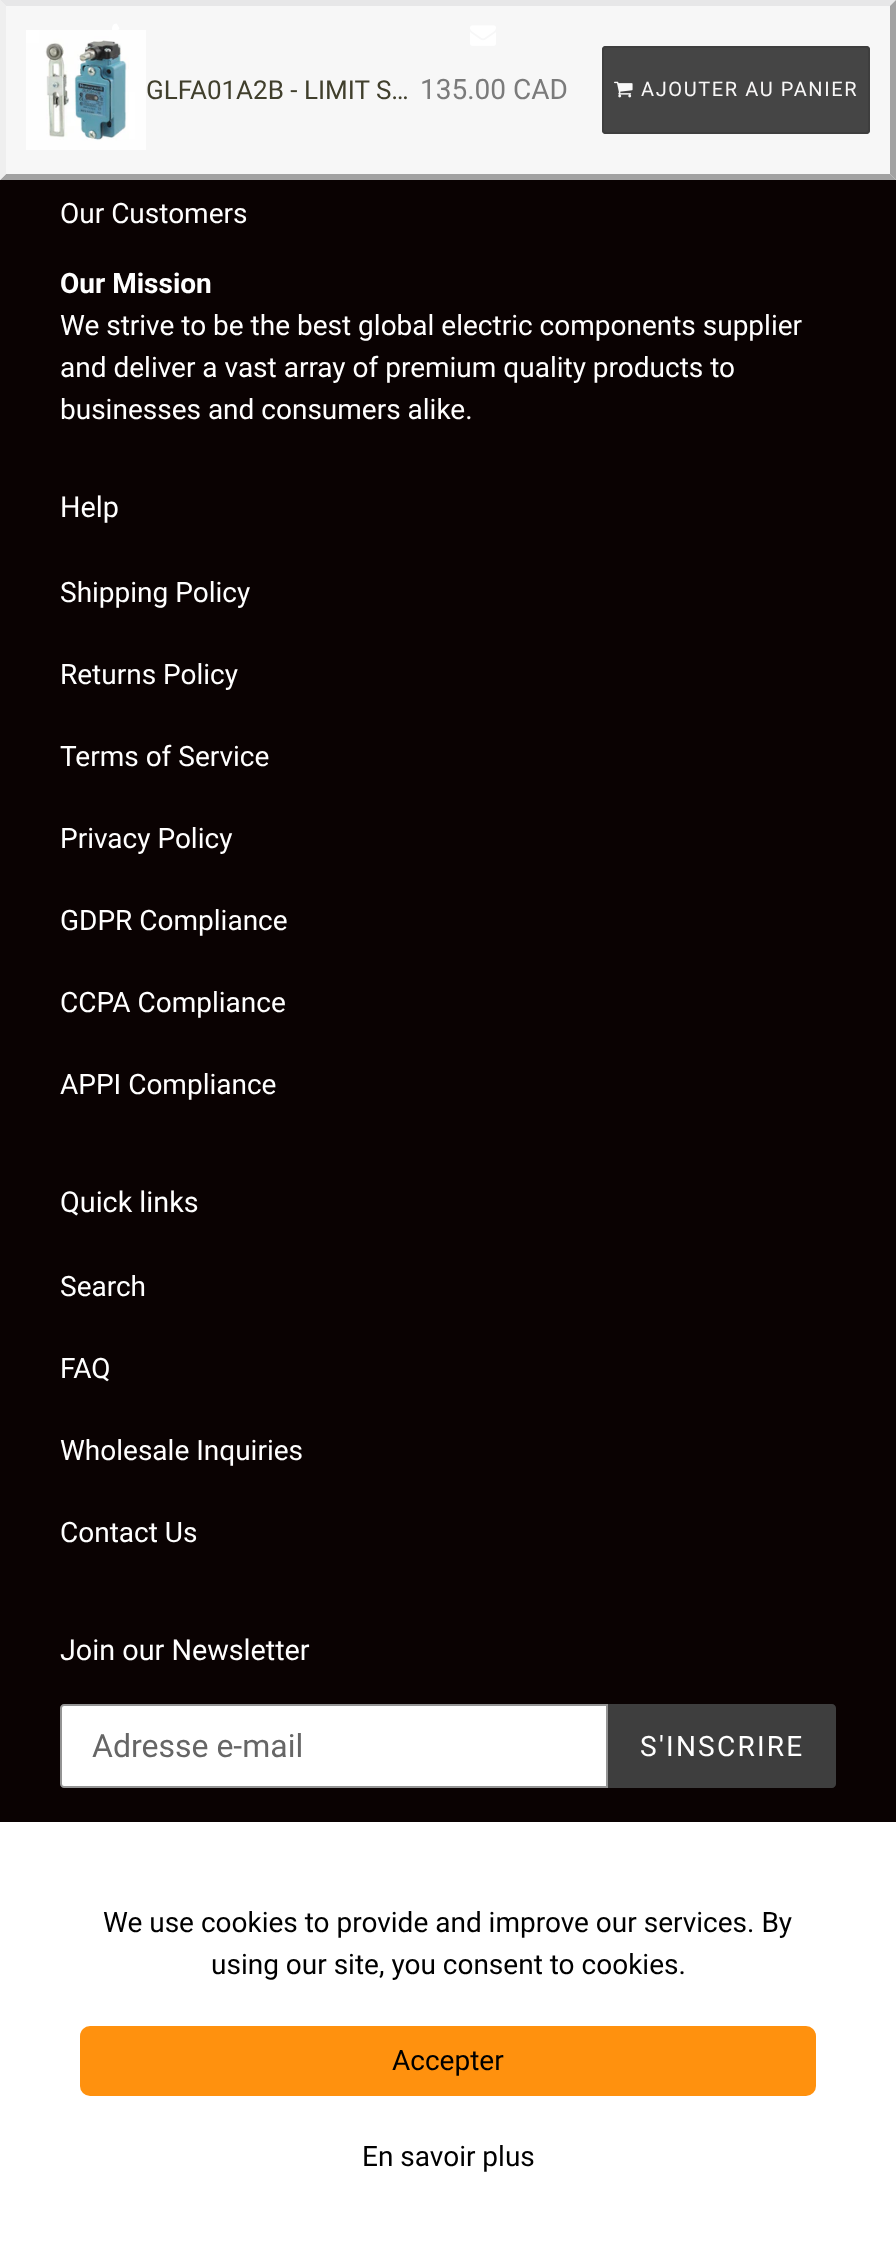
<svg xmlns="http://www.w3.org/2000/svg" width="896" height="2257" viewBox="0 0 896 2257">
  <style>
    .t1 { font: 26px Roboto; fill: #403f2c; }
    .t2 { font: 28px Roboto; fill: #7b7b7b; }
    .t3 { font: 20px Roboto; letter-spacing: 1.6px; fill: #f8f7f7; }
    .t4 { font: 28px Roboto; fill: #fff; }
    .t5 { font: bold 28px Roboto; fill: #fff; }
    .t6 { font: 28.75px Roboto; fill: #fff; }
    .t7 { font: 32px Roboto; fill: #666; }
    .t8 { font: 28px Roboto; letter-spacing: 2.25px; fill: #fff; }
    .t9 { font: 28px Roboto; fill: #000; }
  </style>
  <rect width="100%" height="100%" fill="#0a0202"/>
  <rect x="0" y="0" width="896" height="72" fill="#010a17"/>
  <image x="112" y="23" width="21" height="21" href="images/1.png"/>
  <image x="470" y="25" width="26" height="21" href="images/2.png"/>
  <rect x="0" y="0" width="896" height="180" fill="#fffffff7"/>
  <path d="M0 0H896L890 6H6Z" fill="#e7e7e8"/>
  <path d="M896 0V180L890 174V6Z" fill="#9f9f9ff7"/>
  <path d="M896 180H0L6 174H890Z" fill="#9f9f9ff7"/>
  <path d="M0 180V0L6 6V174Z" fill="#eeeeeef7"/>
  <image x="26" y="30" width="120" height="120" href="images/3.png"/>
  <text x="146" y="99" class="t1">GLFA01A2B - LIMIT S…</text>
  <text x="420" y="99" class="t2">135.00 CAD</text>
  <rect x="602" y="46" width="268" height="88" rx="4" fill="#3f3f3ff7"/>
  <rect x="603" y="47" width="266" height="86" rx="3" fill="none" stroke="#3e3e3ef7" stroke-width="2"/>
  <image x="614" y="81" width="19" height="17" href="images/4.png"/>
  <text x="641" y="96" class="t3">AJOUTER AU PANIER</text>
  <text x="60" y="223" class="t4">Our Customers</text>
  <text x="60" y="293" class="t5">Our Mission</text>
  <text x="60" y="335" class="t4">We strive to be the best global electric components supplier</text>
  <text x="60" y="377" class="t4">and deliver a vast array of premium quality products to</text>
  <text x="60" y="419" class="t4">businesses and consumers alike.</text>
  <text x="60" y="517" class="t6">Help</text>
  <text x="60" y="602" class="t4">Shipping Policy</text>
  <text x="60" y="684" class="t4">Returns Policy</text>
  <text x="60" y="766" class="t4">Terms of Service</text>
  <text x="60" y="848" class="t4">Privacy Policy</text>
  <text x="60" y="930" class="t4">GDPR Compliance</text>
  <text x="60" y="1012" class="t4">CCPA Compliance</text>
  <text x="60" y="1094" class="t4">APPI Compliance</text>
  <text x="60" y="1212" class="t6">Quick links</text>
  <text x="60" y="1296" class="t4">Search</text>
  <text x="60" y="1378" class="t4">FAQ</text>
  <text x="60" y="1460" class="t4">Wholesale Inquiries</text>
  <text x="60" y="1542" class="t4">Contact Us</text>
  <text x="60" y="1660" class="t6">Join our Newsletter</text>
  <path d="M64 1705H607V1787H64C62.5 1787 61 1785.5 61 1784V1708C61 1706.5 62.5 1705 64 1705Z" fill="#fff" stroke="#949494" stroke-width="2"/>
  <text x="92" y="1757" class="t7">Adresse e-mail</text>
  <path d="M608 1704H832C834 1704 836 1706 836 1708V1784C836 1786 834 1788 832 1788H608Z" fill="#3e3e3e"/>
  <text x="640" y="1756" class="t8">S'INSCRIRE</text>
  <rect x="0" y="1822" width="896" height="435" fill="#fff"/>
  <text x="103" y="1932" class="t9">We use cookies to provide and improve our services. By</text>
  <text x="211" y="1974" class="t9">using our site, you consent to cookies.</text>
  <rect x="80" y="2026" width="736" height="70" rx="10" fill="#ff910e"/>
  <text x="392" y="2070" class="t9">Accepter</text>
  <text x="362" y="2166" class="t9">En savoir plus</text>
</svg>
